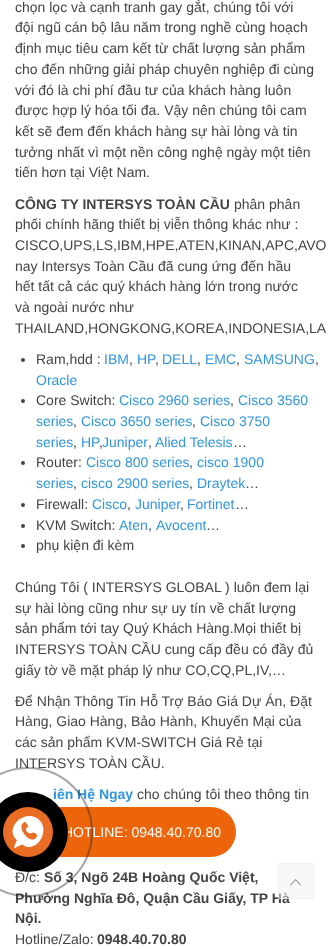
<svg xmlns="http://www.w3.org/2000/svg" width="329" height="949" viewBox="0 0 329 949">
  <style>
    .t1 { font: 14px Liberation Sans; fill: #444; }
    .t2 { font: bold 14px Liberation Sans; fill: #444; }
    .t3 { font: 14px Liberation Sans; fill: #3096de; }
    .t4 { font: bold 14px Liberation Sans; fill: #3096de; }
    .t5 { font: 14px Liberation Sans; fill: #fff; }
  </style>
  <rect width="100%" height="100%" fill="#fff"/>
  <text x="15" y="12" class="t1">chọn lọc và cạnh tranh gay gắt, chúng tôi với</text>
  <text x="15" y="32" class="t1">đội ngũ cán bộ lâu năm trong nghề cùng hoạch</text>
  <text x="15" y="53" class="t1">định mục tiêu cam kết từ chất lượng sản phẩm</text>
  <text x="15" y="74" class="t1">cho đến những giải pháp chuyên nghiệp đi cùng</text>
  <text x="15" y="95" class="t1">với đó là chi phí đầu tư của khách hàng luôn</text>
  <text x="15" y="115" class="t1">được hợp lý hóa tối đa. Vậy nên chúng tôi cam</text>
  <text x="15" y="136" class="t1">kết sẽ đem đến khách hàng sự hài lòng và tin</text>
  <text x="15" y="157" class="t1">tưởng nhất vì một nền công nghệ ngày một tiên</text>
  <text x="15" y="177" class="t1">tiến hơn tại Việt Nam.</text>
  <text x="15" y="209" class="t2">CÔNG TY INTERSYS TOÀN CẦU</text>
  <text x="234" y="209" class="t1">phân phân</text>
  <text x="15" y="229" class="t1">phối chính hãng thiết bị viễn thông khác như :</text>
  <text x="15" y="250" class="t1">CISCO,UPS,LS,IBM,HPE,ATEN,KINAN,APC,AVO</text>
  <text x="15" y="271" class="t1">nay Intersys Toàn Cầu đã cung ứng đến hầu</text>
  <text x="15" y="291" class="t1">hết tất cả các quý khách hàng lớn trong nước</text>
  <text x="15" y="312" class="t1">và ngoài nước như</text>
  <text x="15" y="333" class="t1">THAILAND,HONGKONG,KOREA,INDONESIA,LA</text>
  <circle cx="23" cy="360" r="2" fill="#444"/>
  <text x="36" y="364" class="t1">Ram,hdd :</text>
  <text x="104" y="364" class="t3">IBM</text>
  <text x="137" y="364" class="t3">HP</text>
  <text x="162" y="364" class="t3">DELL</text>
  <text x="205" y="364" class="t3">EMC</text>
  <text x="244" y="364" class="t3">SAMSUNG</text>
  <text x="129" y="364" class="t1">,</text>
  <text x="155" y="364" class="t1">,</text>
  <text x="197" y="364" class="t1">,</text>
  <text x="236" y="364" class="t1">,</text>
  <text x="315" y="364" class="t1">,</text>
  <text x="36" y="385" class="t3">Oracle</text>
  <circle cx="23" cy="401" r="2" fill="#444"/>
  <text x="36" y="405" class="t1">Core Switch:</text>
  <text x="119" y="405" class="t3">Cisco 2960 series</text>
  <text x="238" y="405" class="t3">Cisco 3560</text>
  <text x="230" y="405" class="t1">,</text>
  <text x="36" y="426" class="t3">series</text>
  <text x="73" y="426" class="t1">,</text>
  <text x="81" y="426" class="t3">Cisco 3650 series</text>
  <text x="192" y="426" class="t1">,</text>
  <text x="200" y="426" class="t3">Cisco 3750</text>
  <text x="36" y="447" class="t3">series</text>
  <text x="73" y="447" class="t1">,</text>
  <text x="81" y="447" class="t3">HP</text>
  <text x="99" y="447" class="t1">,</text>
  <text x="102" y="447" class="t3">Juniper</text>
  <text x="148" y="447" class="t1">,</text>
  <text x="155" y="447" class="t3">Alied Telesis</text>
  <text x="233" y="447" class="t1">…</text>
  <circle cx="23" cy="463" r="2" fill="#444"/>
  <text x="36" y="467" class="t1">Router:</text>
  <text x="86" y="467" class="t3">Cisco 800 series</text>
  <text x="197" y="467" class="t3">cisco 1900</text>
  <text x="189" y="467" class="t1">,</text>
  <text x="36" y="488" class="t3">series</text>
  <text x="73" y="488" class="t1">,</text>
  <text x="81" y="488" class="t3">cisco 2900 series</text>
  <text x="189" y="488" class="t1">,</text>
  <text x="197" y="488" class="t3">Draytek</text>
  <text x="245" y="488" class="t1">…</text>
  <circle cx="23" cy="505" r="2" fill="#444"/>
  <text x="36" y="509" class="t1">Firewall:</text>
  <text x="92" y="509" class="t3">Cisco</text>
  <text x="135" y="509" class="t3">Juniper</text>
  <text x="187" y="509" class="t3">Fortinet</text>
  <text x="127" y="509" class="t1">,</text>
  <text x="180" y="509" class="t1">,</text>
  <text x="235" y="509" class="t1">…</text>
  <circle cx="23" cy="526" r="2" fill="#444"/>
  <text x="36" y="530" class="t1">KVM Switch:</text>
  <text x="119" y="530" class="t3">Aten</text>
  <text x="156" y="530" class="t3">Avocent</text>
  <text x="148" y="530" class="t1">,</text>
  <text x="206" y="530" class="t1">…</text>
  <circle cx="23" cy="546" r="2" fill="#444"/>
  <text x="36" y="550" class="t1">phụ kiện đi kèm</text>
  <text x="15" y="592" class="t1">Chúng Tôi ( INTERSYS GLOBAL ) luôn đem lại</text>
  <text x="15" y="613" class="t1">sự hài lòng cũng như sự uy tín về chất lượng</text>
  <text x="15" y="633" class="t1">sản phẩm tới tay Quý Khách Hàng.Mọi thiết bị</text>
  <text x="15" y="654" class="t1">INTERSYS TOÀN CẦU cung cấp đều có đầy đủ</text>
  <text x="15" y="675" class="t1">giấy tờ về mặt pháp lý như CO,CQ,PL,IV,…</text>
  <text x="15" y="706" class="t1">Để Nhận Thông Tin Hỗ Trợ Báo Giá Dự Án, Đặt</text>
  <text x="15" y="726" class="t1">Hàng, Giao Hàng, Bảo Hành, Khuyến Mại của</text>
  <text x="15" y="747" class="t1">các sản phẩm KVM-SWITCH Giá Rẻ tại</text>
  <text x="15" y="768" class="t1">INTERSYS TOÀN CẦU.</text>
  <text x="53" y="799" class="t4">iên Hệ Ngay</text>
  <text x="137" y="799" class="t1">cho chúng tôi theo thông tin</text>
  <text x="15" y="882" class="t1">Đ/c:</text>
  <text x="44" y="882" class="t2">Số 3, Ngõ 24B Hoàng Quốc Việt,</text>
  <text x="15" y="903" class="t2">Phường Nghĩa Đô, Quận Cầu Giấy, TP Hà</text>
  <text x="15" y="923" class="t2">Nội.</text>
  <text x="15" y="944" class="t1">Hotline/Zalo:</text>
  <text x="97" y="944" class="t2">0948.40.70.80</text>
  <rect x="3" y="807" width="233" height="50" rx="25" fill="#ed650b"/>
  <text x="63" y="837" class="t5">HOTLINE: 0948.40.70.80</text>
  <circle cx="28" cy="832" r="64" fill="none" stroke="#1e1e1e66" stroke-width="2"/>
  <circle cx="28" cy="832" r="40" fill="#000"/>
  <circle cx="28" cy="832" r="25" fill="#ea6d25"/>
  <image x="12" y="816" width="32" height="32" href="images/1.png"/>
  <rect x="278" y="863" width="36" height="36" fill="#f2f2f280"/>
  <rect x="278.5" y="863.5" width="35" height="35" fill="none" stroke="#ebebeb80"/>
  <image x="290" y="879" width="12" height="7" href="images/2.png"/>
</svg>
